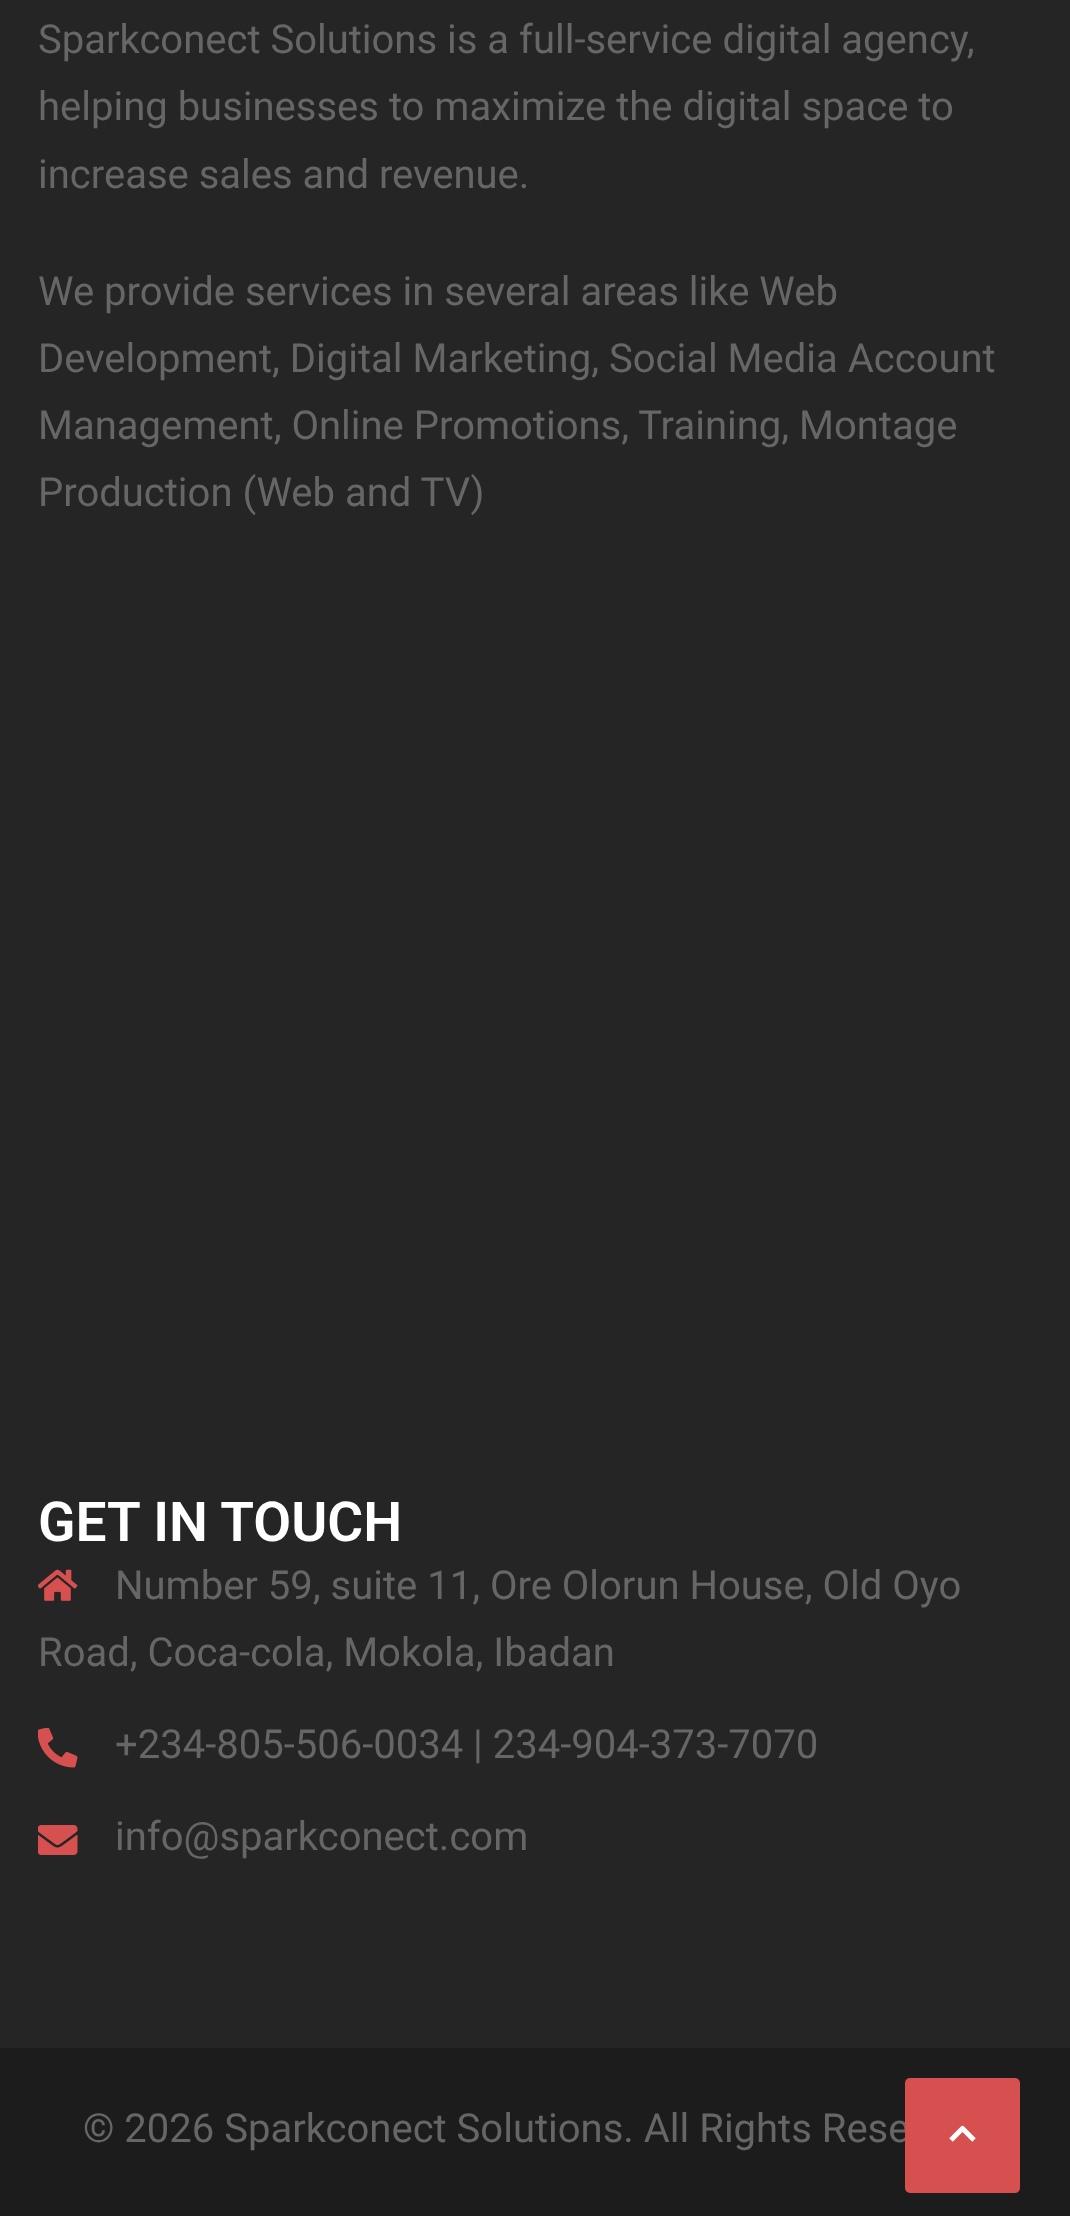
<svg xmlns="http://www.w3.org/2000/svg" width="1070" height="2216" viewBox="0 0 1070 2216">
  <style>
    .t1 { font: 40px Roboto; fill: #666; }
    .t2 { font: 600 55px Roboto; fill: #fff; }
  </style>
  <rect width="100%" height="100%" fill="#252525"/>
  <text x="38" y="53" class="t1">Sparkconect Solutions is a full-service digital agency,</text>
  <text x="38" y="120" class="t1">helping businesses to maximize the digital space to</text>
  <text x="38" y="188" class="t1">increase sales and revenue.</text>
  <text x="38" y="305" class="t1">We provide services in several areas like Web</text>
  <text x="38" y="372" class="t1">Development, Digital Marketing, Social Media Account</text>
  <text x="38" y="439" class="t1">Management, Online Promotions, Training, Montage</text>
  <text x="38" y="506" class="t1">Production (Web and TV)</text>
  <text x="38" y="1541" class="t2">GET IN TOUCH</text>
  <image x="38" y="1569" width="40" height="32" href="images/1.png"/>
  <text x="115" y="1599" class="t1">Number 59, suite 11, Ore Olorun House, Old Oyo</text>
  <text x="38" y="1666" class="t1">Road, Coca-cola, Mokola, Ibadan</text>
  <image x="38" y="1728" width="40" height="40" href="images/2.png"/>
  <text x="115" y="1758" class="t1">+234-805-506-0034 | 234-904-373-7070</text>
  <image x="38" y="1825" width="40" height="30" href="images/3.png"/>
  <text x="115" y="1850" class="t1">info@sparkconect.com</text>
  <rect x="0" y="2048" width="1070" height="168" fill="#1c1c1c"/>
  <text x="83" y="2142" class="t1">© 2026 Sparkconect Solutions. All Rights Rese</text>
  <rect x="905" y="2078" width="115" height="115" rx="5" fill="#d65050"/>
  <path d="M951 2140L962.5 2128.5L974 2140" fill="none" stroke="#fff" stroke-width="5" stroke-linejoin="round"/>
</svg>
